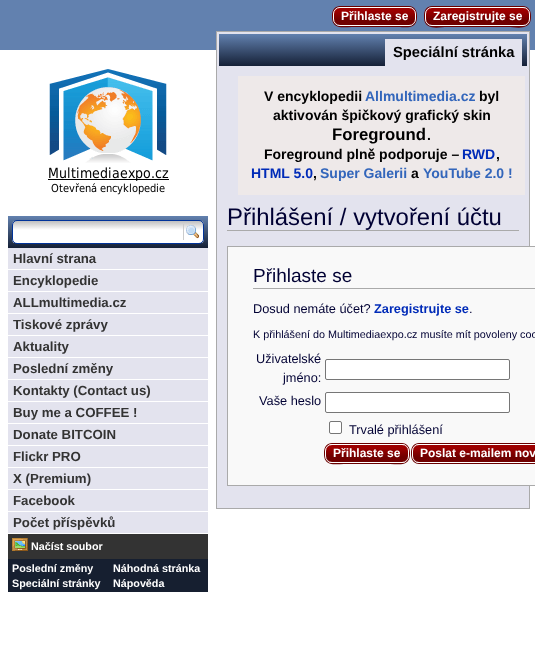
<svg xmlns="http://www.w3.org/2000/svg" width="535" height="663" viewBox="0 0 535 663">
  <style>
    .t1 { font: bold 12px Liberation Sans; fill: #fff; }
    .t2 { font: bold 13.25px Liberation Sans; fill: #333; }
    .t3 { font: bold 10.75px Liberation Sans; fill: #fff; }
    .t4 { font: bold 14.75px Liberation Sans; fill: #000; }
    .t5 { font: bold 14px Liberation Sans; fill: #000; }
    .t6 { font: bold 14px Liberation Sans; fill: #36b; }
    .t7 { font: bold 16.75px Liberation Sans; fill: #000; }
    .t8 { font: bold 14px Liberation Sans; fill: #002bb8; }
    .t9 { font: 23.9px Liberation Sans; fill: #003; }
    .t10 { font: 19px Liberation Sans; fill: #003; }
    .t11 { font: 12.75px Liberation Sans; fill: #003; }
    .t12 { font: bold 12.75px Liberation Sans; fill: #002bb8; }
    .t13 { font: 10.8px Liberation Sans; fill: #003; }
  </style>
  <defs>
    <clipPath id="clip1"><rect x="333" y="7" width="83" height="19" rx="7"/></clipPath>
    <linearGradient id="g1" gradientUnits="userSpaceOnUse" x1="334" y1="11" x2="334" y2="20"><stop offset="0" stop-color="#9d0000"/><stop offset="1" stop-color="#700000"/></linearGradient>
    <clipPath id="clip2"><rect x="425" y="7" width="105" height="19" rx="7"/></clipPath>
    <linearGradient id="g2" gradientUnits="userSpaceOnUse" x1="426" y1="11" x2="426" y2="20"><stop offset="0" stop-color="#9d0000"/><stop offset="1" stop-color="#700000"/></linearGradient>
    <linearGradient id="g3" gradientUnits="userSpaceOnUse" x1="8" y1="216" x2="8" y2="248"><stop offset="0" stop-color="#6281af"/><stop offset="1" stop-color="#152036"/></linearGradient>
    <clipPath id="clip3"><rect x="12" y="220" width="192" height="24" rx="5"/></clipPath>
    <linearGradient id="g4" gradientUnits="userSpaceOnUse" x1="13" y1="221" x2="13" y2="230"><stop offset="0" stop-color="#bfbfbf"/><stop offset="1" stop-color="#fff"/></linearGradient>
    <linearGradient id="g5" gradientUnits="userSpaceOnUse" x1="219" y1="34" x2="219" y2="66"><stop offset="0" stop-color="#6281af"/><stop offset="1" stop-color="#152036"/></linearGradient>
    <clipPath id="clip4"><rect x="325" y="444" width="84" height="19" rx="7"/></clipPath>
    <linearGradient id="g6" gradientUnits="userSpaceOnUse" x1="326" y1="448" x2="326" y2="457"><stop offset="0" stop-color="#9d0000"/><stop offset="1" stop-color="#700000"/></linearGradient>
    <clipPath id="clip5"><rect x="412" y="444" width="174" height="19" rx="7"/></clipPath>
    <linearGradient id="g7" gradientUnits="userSpaceOnUse" x1="413" y1="448" x2="413" y2="457"><stop offset="0" stop-color="#9d0000"/><stop offset="1" stop-color="#700000"/></linearGradient>
  </defs>
  <rect width="100%" height="100%" fill="#fff"/>
  <rect x="0" y="0" width="535" height="50" fill="#6281af"/>
  <path d="M339 7C333 7 332 12 332 16.5C332 22 333.5 26 340 26C334 26 333 21 333 16.5C333 12 334 7 340 7Z" fill="#6a0000"/>
  <path d="M409 26C415.5 26 417 22 417 16.5C417 11 415.5 7 409 7C415 7 416 12 416 16.5C416 21 415 26 409 26Z" fill="#6a0000"/>
  <path d="M340 6C335 6 333 10 333 14C333 10 336 7 340 7H409C413 7 416 10 416 14C416 10 414 6 409 6Z" fill="#6a0000"/>
  <path d="M333 19C333 30 344 27 352 27H398C405 27 416 30 416 19C416 23 413 26 409 26H340C336 26 333 23 333 19Z" fill="#6a0000"/>
  <g clip-path="url(#clip1)">
    <rect x="333" y="8" width="83" height="17" fill="url(#g1)"/>
  </g>
  <rect x="333.5" y="7.5" width="82" height="18" rx="6.5" fill="none" stroke="#fff"/>
  <text x="341" y="20" class="t1">Přihlaste se</text>
  <path d="M431 7C425 7 424 12 424 16.5C424 22 425.5 26 432 26C426 26 425 21 425 16.5C425 12 426 7 432 7Z" fill="#6a0000"/>
  <path d="M523 26C529.5 26 531 22 531 16.5C531 11 529.5 7 523 7C529 7 530 12 530 16.5C530 21 529 26 523 26Z" fill="#6a0000"/>
  <path d="M432 6C427 6 425 10 425 14C425 10 428 7 432 7H523C527 7 530 10 530 14C530 10 528 6 523 6Z" fill="#6a0000"/>
  <path d="M425 19C425 31 440 27 447 27H508C515 27 530 31 530 19C530 23 527 26 523 26H432C428 26 425 23 425 19Z" fill="#6a0000"/>
  <g clip-path="url(#clip2)">
    <rect x="425" y="8" width="105" height="17" fill="url(#g2)"/>
  </g>
  <rect x="425.5" y="7.5" width="104" height="18" rx="6.5" fill="none" stroke="#fff"/>
  <text x="433" y="20" class="t1">Zaregistrujte se</text>
  <image x="48" y="69" width="121" height="126" href="images/1.png"/>
  <rect x="8" y="216" width="200" height="32" fill="url(#g3)"/>
  <g clip-path="url(#clip3)">
    <rect x="12" y="221" width="192" height="22" fill="url(#g4)"/>
  </g>
  <rect x="12.5" y="220.5" width="191" height="23" rx="4.5" fill="none" stroke="#039"/>
  <image x="186" y="225" width="13" height="14" href="images/2.png"/>
  <rect x="183" y="224" width="1" height="16" fill="#ccc"/>
  <rect x="8" y="248" width="200" height="21" fill="#e3e3ee"/>
  <text x="13" y="263" class="t2">Hlavní strana</text>
  <rect x="8" y="270" width="200" height="21" fill="#e3e3ee"/>
  <text x="13" y="285" class="t2">Encyklopedie</text>
  <rect x="8" y="292" width="200" height="21" fill="#e3e3ee"/>
  <text x="13" y="307" class="t2">ALLmultimedia.cz</text>
  <rect x="8" y="314" width="200" height="21" fill="#e3e3ee"/>
  <text x="13" y="329" class="t2">Tiskové zprávy</text>
  <rect x="8" y="336" width="200" height="21" fill="#e3e3ee"/>
  <text x="13" y="351" class="t2">Aktuality</text>
  <rect x="8" y="358" width="200" height="21" fill="#e3e3ee"/>
  <text x="13" y="373" class="t2">Poslední změny</text>
  <rect x="8" y="380" width="200" height="21" fill="#e3e3ee"/>
  <text x="13" y="395" class="t2">Kontakty (Contact us)</text>
  <rect x="8" y="402" width="200" height="21" fill="#e3e3ee"/>
  <text x="13" y="417" class="t2">Buy me a COFFEE !</text>
  <rect x="8" y="424" width="200" height="21" fill="#e3e3ee"/>
  <text x="13" y="439" class="t2">Donate BITCOIN</text>
  <rect x="8" y="446" width="200" height="21" fill="#e3e3ee"/>
  <text x="13" y="461" class="t2">Flickr PRO</text>
  <rect x="8" y="468" width="200" height="21" fill="#e3e3ee"/>
  <text x="13" y="483" class="t2">X (Premium)</text>
  <rect x="8" y="490" width="200" height="21" fill="#e3e3ee"/>
  <text x="13" y="505" class="t2">Facebook</text>
  <rect x="8" y="512" width="200" height="21" fill="#e3e3ee"/>
  <text x="13" y="527" class="t2">Počet příspěvků</text>
  <rect x="8" y="534" width="200" height="25" fill="#333"/>
  <image x="12" y="538" width="16" height="13" href="images/3.png"/>
  <text x="31" y="550" class="t3">Načíst soubor</text>
  <rect x="8" y="559" width="200" height="33" fill="#161f30"/>
  <text x="12" y="572" class="t3">Poslední změny</text>
  <text x="12" y="587" class="t3">Speciální stránky</text>
  <text x="113" y="572" class="t3">Náhodná stránka</text>
  <text x="113" y="587" class="t3">Nápověda</text>
  <rect x="216.5" y="31.5" width="313" height="477" fill="#e3e3ee" stroke="#aaa"/>
  <rect x="219" y="34" width="308" height="32" fill="url(#g5)"/>
  <rect x="385" y="39" width="137" height="27" fill="#e3e3ee"/>
  <text x="393" y="57" class="t4">Speciální stránka</text>
  <rect x="238" y="76" width="287" height="119" fill="#eee9e9"/>
  <text x="264" y="101" class="t5">V encyklopedii</text>
  <text x="365" y="101" class="t6">Allmultimedia.cz</text>
  <text x="479" y="101" class="t5">byl</text>
  <text x="273" y="120" class="t5">aktivován špičkový grafický skin</text>
  <text x="332" y="140" class="t7">Foreground</text>
  <text x="427" y="140" class="t5">.</text>
  <text x="264" y="159" class="t5">Foreground plně podporuje –</text>
  <text x="462" y="159" class="t8">RWD</text>
  <text x="496" y="159" class="t5">,</text>
  <text x="251" y="178" class="t8">HTML 5.0</text>
  <text x="313" y="178" class="t5">,</text>
  <text x="320" y="178" class="t6">Super Galerii</text>
  <text x="411" y="178" class="t5">a</text>
  <text x="423" y="178" class="t6">YouTube 2.0 !</text>
  <rect x="227" y="230" width="292" height="1" fill="#aaa"/>
  <text x="227" y="225" class="t9">Přihlášení / vytvoření účtu</text>
  <rect x="227.5" y="246.5" width="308" height="239" fill="#f9f9f9" stroke="#aaa"/>
  <rect x="253" y="288" width="282" height="1" fill="#aaa"/>
  <text x="253" y="282" class="t10">Přihlaste se</text>
  <text x="253" y="313" class="t11">Dosud nemáte účet?</text>
  <text x="374" y="313" class="t12">Zaregistrujte se</text>
  <text x="469" y="313" class="t11">.</text>
  <text x="253" y="338" class="t13">K přihlášení do Multimediaexpo.cz musíte mít povoleny coo</text>
  <text x="256" y="363" class="t11">Uživatelské</text>
  <text x="283" y="382" class="t11">jméno:</text>
  <rect x="325.5" y="359.5" width="184" height="20" rx="1.5" fill="#fff" stroke="#767676"/>
  <text x="259" y="405" class="t11">Vaše heslo</text>
  <rect x="325.5" y="392.5" width="184" height="20" rx="1.5" fill="#fff" stroke="#767676"/>
  <rect x="329.5" y="421.5" width="12" height="12" rx="1.5" fill="#fff" stroke="#767676"/>
  <text x="349" y="434" class="t11">Trvalé přihlášení</text>
  <path d="M331 444C325 444 324 449 324 453.5C324 459 325.5 463 332 463C326 463 325 458 325 453.5C325 449 326 444 332 444Z" fill="#6a0000"/>
  <path d="M402 463C408.5 463 410 459 410 453.5C410 448 408.5 444 402 444C408 444 409 449 409 453.5C409 458 408 463 402 463Z" fill="#6a0000"/>
  <path d="M332 443C327 443 325 447 325 451C325 447 328 444 332 444H402C406 444 409 447 409 451C409 447 407 443 402 443Z" fill="#6a0000"/>
  <path d="M325 456C325 467 336 464 344 464H390C398 464 409 467 409 456C409 460 406 463 402 463H332C328 463 325 460 325 456Z" fill="#6a0000"/>
  <g clip-path="url(#clip4)">
    <rect x="325" y="445" width="84" height="17" fill="url(#g6)"/>
  </g>
  <rect x="325.5" y="444.5" width="83" height="18" rx="6.5" fill="none" stroke="#fff"/>
  <text x="333" y="457" class="t1">Přihlaste se</text>
  <path d="M418 444C412 444 411 449 411 453.5C411 459 412.5 463 419 463C413 463 412 458 412 453.5C412 449 413 444 419 444Z" fill="#6a0000"/>
  <path d="M419 443C414 443 412 447 412 451C412 447 415 444 419 444H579C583 444 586 447 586 451C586 447 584 443 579 443Z" fill="#6a0000"/>
  <path d="M412 456V457C412 461 415 464 419 464H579C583 464 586 461 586 457V456C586 460 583 463 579 463H419C415 463 412 460 412 456Z" fill="#6a0000"/>
  <g clip-path="url(#clip5)">
    <rect x="412" y="445" width="123" height="17" fill="url(#g7)"/>
  </g>
  <rect x="412.5" y="444.5" width="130" height="18" rx="6.5" fill="none" stroke="#fff"/>
  <text x="420" y="457" class="t1">Poslat e-mailem nov</text>
</svg>
